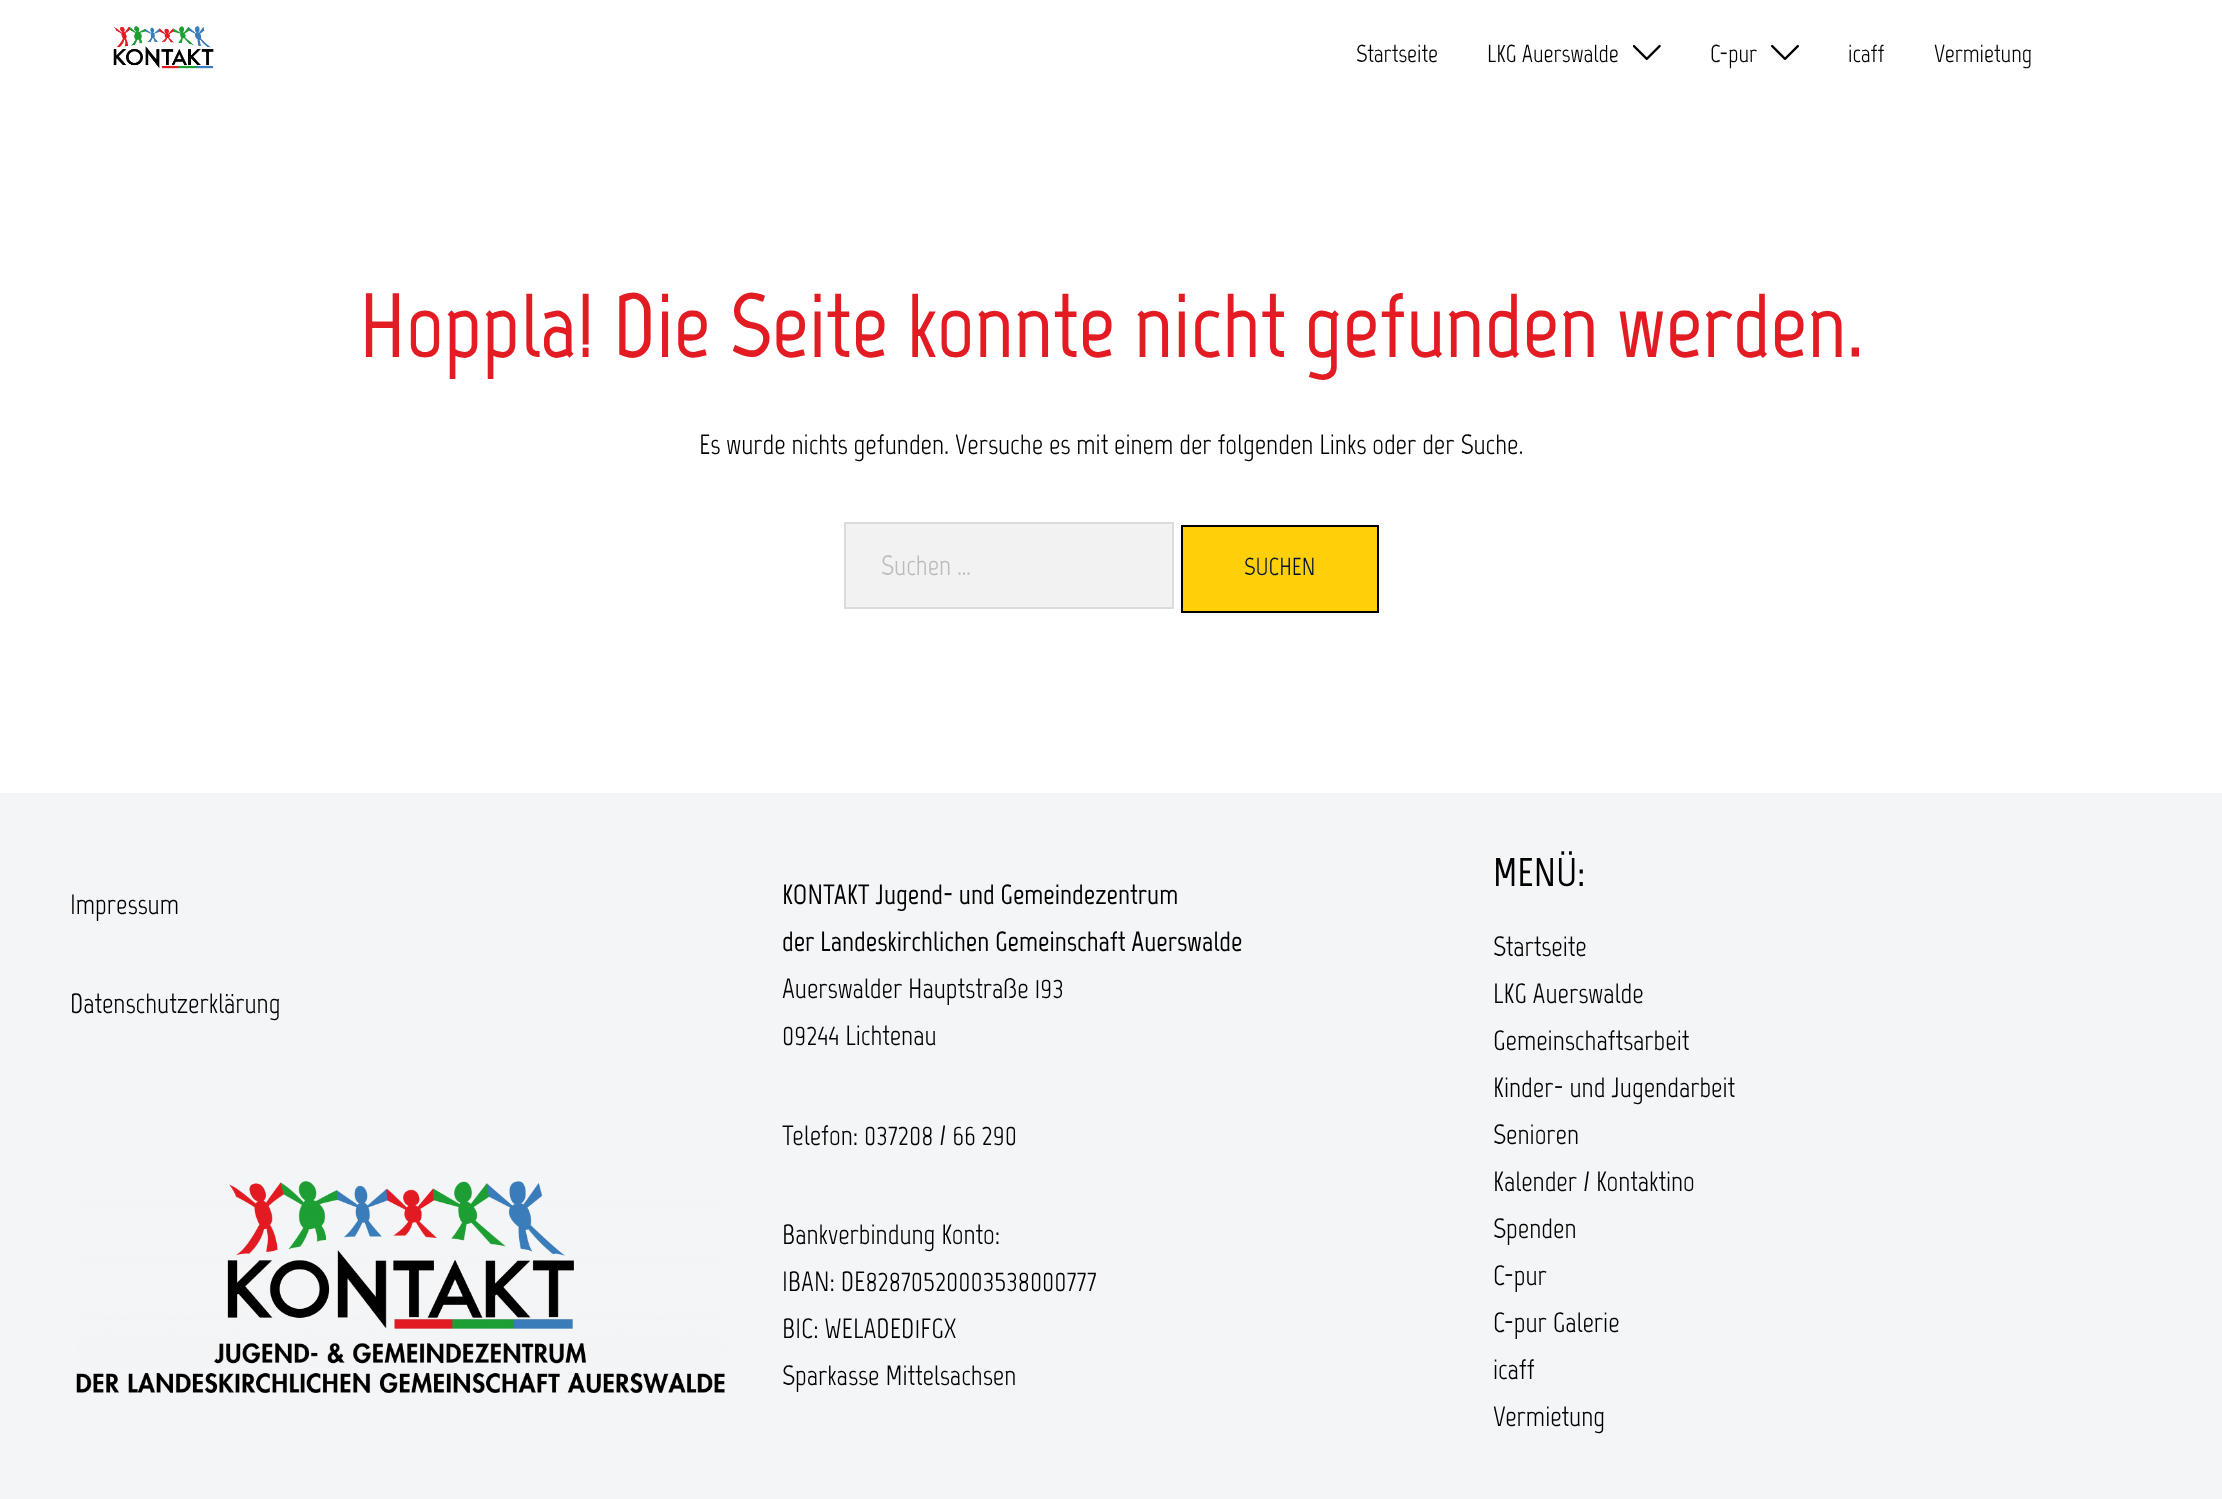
<svg xmlns="http://www.w3.org/2000/svg" width="2222" height="1499" viewBox="0 0 2222 1499">
  <style>
    .t1 { font: 24.5px Marvel; fill: #000; }
    .t2 { font: bold 91px Marvel; fill: #e31b22; }
    .t3 { font: 28px Marvel; fill: #000; }
    .t4 { font: 28px Marvel; fill: #bcbcbc; }
    .t5 { font: 24.5px Marvel; fill: #00102e; }
    .t6 { font: bold 28px Marvel; fill: #000; }
    .t7 { font: bold 40px Marvel; fill: #000; }
  </style>
  <rect width="100%" height="100%" fill="#fff"/>
  <image x="113" y="26" width="101" height="43" href="images/1.png"/>
  <text x="1356" y="62" class="t1">Startseite</text>
  <text x="1487" y="62" class="t1">LKG Auerswalde</text>
  <image x="1633" y="44" width="28" height="17" href="images/2.png"/>
  <text x="1710" y="62" class="t1">C-pur</text>
  <image x="1771" y="44" width="28" height="16" href="images/3.png"/>
  <text x="1848" y="62" class="t1">icaff</text>
  <text x="1934" y="62" class="t1">Vermietung</text>
  <text x="359" y="357" class="t2">Hoppla! Die Seite konnte nicht gefunden werden.</text>
  <text x="699" y="454" class="t3">Es wurde nichts gefunden. Versuche es mit einem der folgenden Links oder der Suche.</text>
  <rect x="845" y="523" width="328" height="85" fill="#f2f2f2" stroke="#dbdbdb" stroke-width="2"/>
  <text x="881" y="575" class="t4">Suchen …</text>
  <rect x="1182" y="526" width="196" height="86" fill="#ffd00a" stroke="#000" stroke-width="2"/>
  <text x="1244" y="575" class="t5">SUCHEN</text>
  <rect x="0" y="793" width="2222" height="706" fill="#f4f5f7"/>
  <text x="70" y="914" class="t3">Impressum</text>
  <text x="70" y="1013" class="t3">Datenschutzerklärung</text>
  <image x="76" y="1181" width="649" height="212" href="images/4.png"/>
  <text x="782" y="904" class="t6">KONTAKT Jugend- und Gemeindezentrum</text>
  <text x="782" y="951" class="t6">der Landeskirchlichen Gemeinschaft Auerswalde</text>
  <text x="782" y="998" class="t3">Auerswalder Hauptstraße 193</text>
  <text x="782" y="1045" class="t3">09244 Lichtenau</text>
  <text x="782" y="1145" class="t3">Telefon: 037208 / 66 290</text>
  <text x="782" y="1244" class="t3">Bankverbindung Konto:</text>
  <text x="782" y="1291" class="t3">IBAN: DE82870520003538000777</text>
  <text x="782" y="1338" class="t3">BIC: WELADED1FGX</text>
  <text x="782" y="1385" class="t3">Sparkasse Mittelsachsen</text>
  <text x="1493" y="886" class="t7">MENÜ:</text>
  <text x="1493" y="956" class="t3">Startseite</text>
  <text x="1493" y="1003" class="t3">LKG Auerswalde</text>
  <text x="1493" y="1050" class="t3">Gemeinschaftsarbeit</text>
  <text x="1493" y="1097" class="t3">Kinder- und Jugendarbeit</text>
  <text x="1493" y="1144" class="t3">Senioren</text>
  <text x="1493" y="1191" class="t3">Kalender / Kontaktino</text>
  <text x="1493" y="1238" class="t3">Spenden</text>
  <text x="1493" y="1285" class="t3">C-pur</text>
  <text x="1493" y="1332" class="t3">C-pur Galerie</text>
  <text x="1493" y="1379" class="t3">icaff</text>
  <text x="1493" y="1426" class="t3">Vermietung</text>
</svg>
